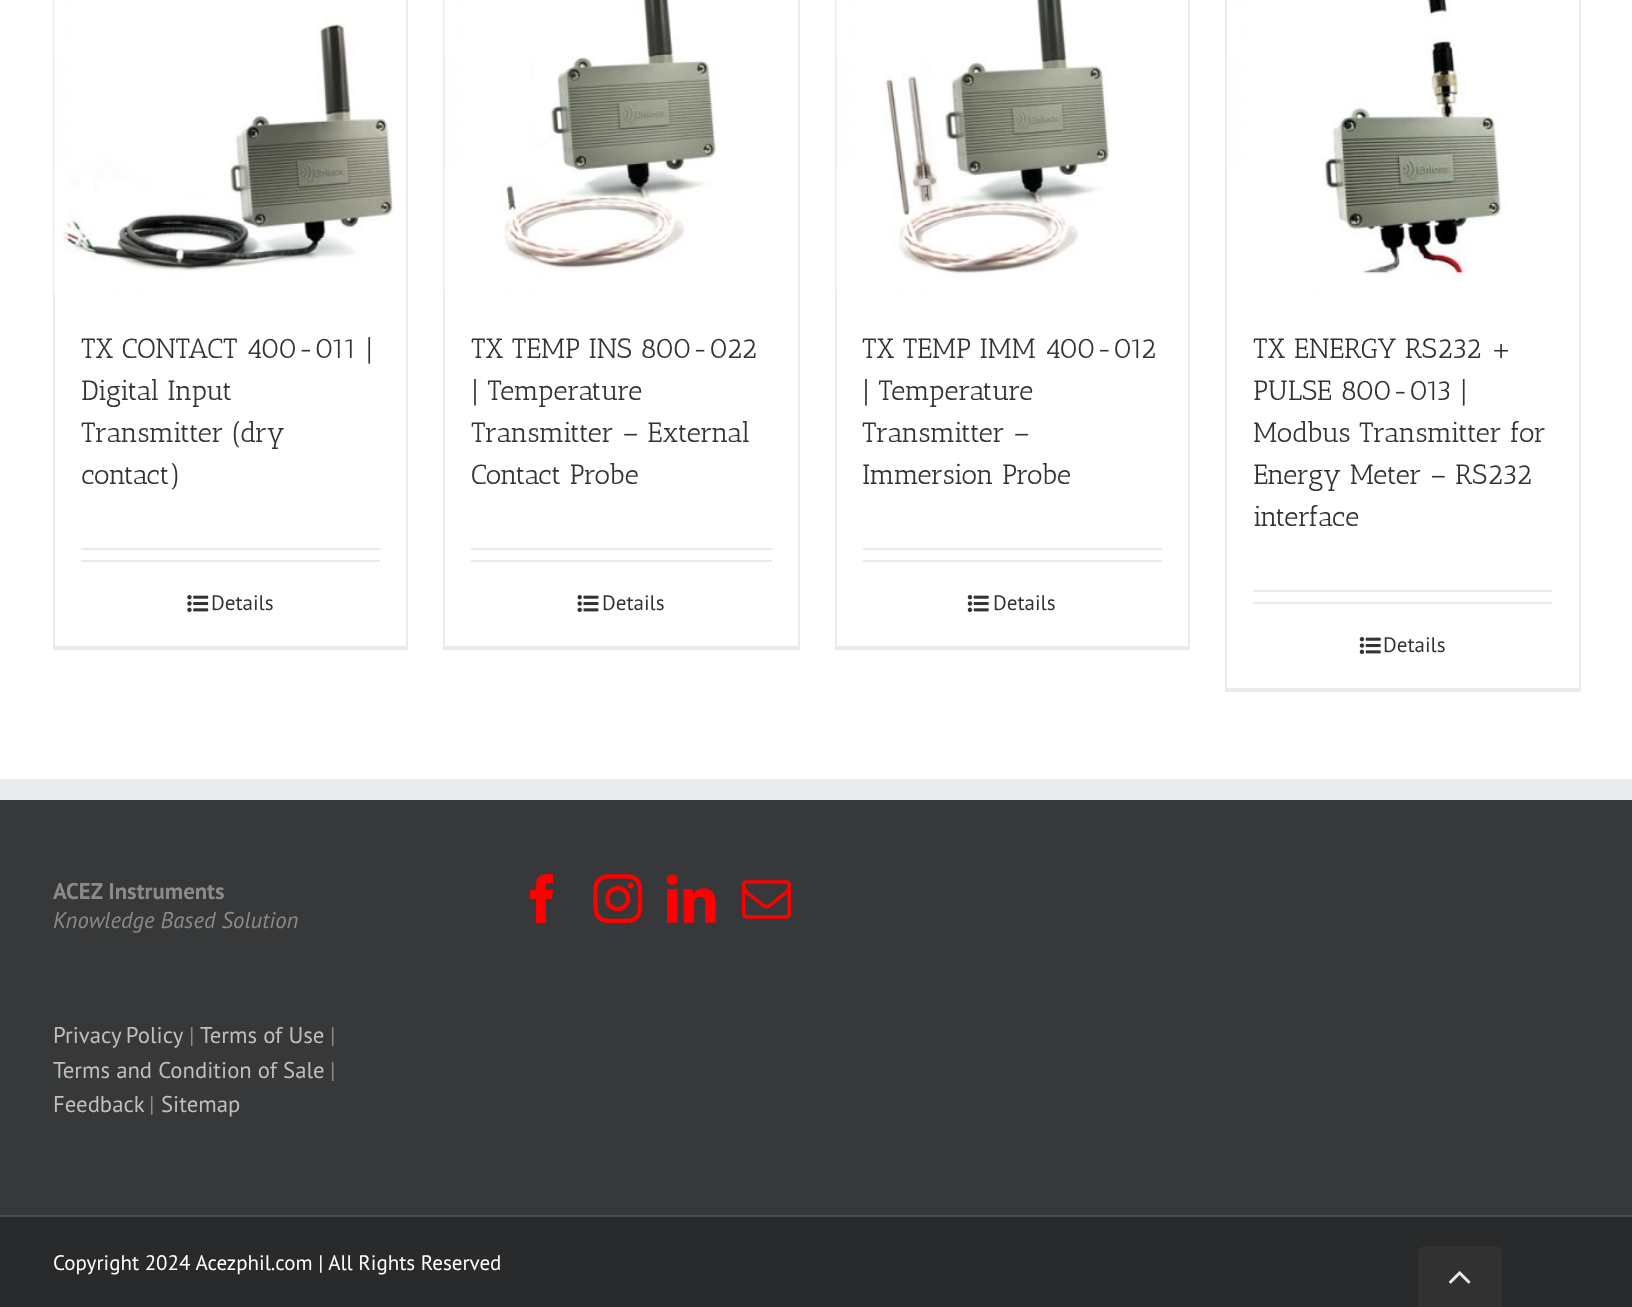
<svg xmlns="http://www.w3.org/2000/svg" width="1632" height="1307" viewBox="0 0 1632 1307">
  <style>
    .t1 { font: 28px Antic Slab; fill: #333; }
    .t2 { font: 21px PT Sans; fill: #333; }
    .t3 { font: bold 22.75px PT Sans; fill: #8c8989; }
    .t4 { font: italic 22.75px PT Sans; fill: #8c8989; }
    .t5 { font: 22.75px PT Sans; fill: #bfbfbf; }
    .t6 { font: 22.75px PT Sans; fill: #8c8989; }
    .t7 { font: 21px PT Sans; fill: #fff; }
  </style>
  <rect width="100%" height="100%" fill="#fff"/>
  <rect x="406" y="0" width="2" height="649" fill="#ebeaea"/>
  <rect x="53" y="646" width="355" height="4" fill="#ebeaea"/>
  <rect x="53" y="0" width="2" height="649" fill="#ebeaea"/>
  <image x="54" y="0" width="340" height="294" href="images/1.png"/>
  <text x="81" y="358" class="t1">TX CONTACT 400-011 |</text>
  <text x="81" y="400" class="t1">Digital Input</text>
  <text x="81" y="442" class="t1">Transmitter (dry</text>
  <text x="81" y="484" class="t1">contact)</text>
  <rect x="81" y="548" width="299" height="2" fill="#ebeaea"/>
  <rect x="81" y="560" width="299" height="2" fill="#ebeaea"/>
  <image x="187" y="595" width="22" height="18" href="images/2.png"/>
  <text x="211" y="610" class="t2">Details</text>
  <rect x="798" y="0" width="2" height="649" fill="#ebeaea"/>
  <rect x="443" y="646" width="357" height="4" fill="#ebeaea"/>
  <rect x="443" y="0" width="2" height="649" fill="#ebeaea"/>
  <image x="444" y="0" width="274" height="294" href="images/3.png"/>
  <text x="471" y="358" class="t1">TX TEMP INS 800-022</text>
  <text x="471" y="400" class="t1">| Temperature</text>
  <text x="471" y="442" class="t1">Transmitter – External</text>
  <text x="471" y="484" class="t1">Contact Probe</text>
  <rect x="471" y="548" width="301" height="2" fill="#ebeaea"/>
  <rect x="471" y="560" width="301" height="2" fill="#ebeaea"/>
  <image x="577" y="595" width="22" height="18" href="images/4.png"/>
  <text x="602" y="610" class="t2">Details</text>
  <rect x="1188" y="0" width="2" height="649" fill="#ebeaea"/>
  <rect x="835" y="646" width="355" height="4" fill="#ebeaea"/>
  <rect x="835" y="0" width="2" height="649" fill="#ebeaea"/>
  <image x="836" y="0" width="353" height="294" href="images/5.png"/>
  <text x="862" y="358" class="t1">TX TEMP IMM 400-012</text>
  <text x="862" y="400" class="t1">| Temperature</text>
  <text x="862" y="442" class="t1">Transmitter –</text>
  <text x="862" y="484" class="t1">Immersion Probe</text>
  <rect x="863" y="548" width="299" height="2" fill="#ebeaea"/>
  <rect x="863" y="560" width="299" height="2" fill="#ebeaea"/>
  <image x="967" y="595" width="22" height="17" href="images/6.png"/>
  <text x="993" y="610" class="t2">Details</text>
  <rect x="1579" y="0" width="2" height="691" fill="#ebeaea"/>
  <rect x="1225" y="688" width="355" height="4" fill="#ebeaea"/>
  <rect x="1225" y="0" width="2" height="691" fill="#ebeaea"/>
  <image x="1226" y="0" width="280" height="294" href="images/7.png"/>
  <text x="1253" y="358" class="t1">TX ENERGY RS232 +</text>
  <text x="1253" y="400" class="t1">PULSE 800-013 |</text>
  <text x="1253" y="442" class="t1">Modbus Transmitter for</text>
  <text x="1253" y="484" class="t1">Energy Meter – RS232</text>
  <text x="1253" y="526" class="t1">interface</text>
  <rect x="1253" y="590" width="299" height="2" fill="#ebeaea"/>
  <rect x="1253" y="602" width="299" height="2" fill="#ebeaea"/>
  <image x="1359" y="637" width="22" height="17" href="images/6.png"/>
  <text x="1383" y="652" class="t2">Details</text>
  <rect x="0" y="800" width="1632" height="415" fill="#363839"/>
  <rect x="0" y="779" width="1632" height="21" fill="#e9eaee"/>
  <text x="53" y="899" class="t3">ACEZ Instruments</text>
  <text x="53" y="928" class="t4">Knowledge Based Solution</text>
  <text x="53" y="1043" word-spacing="-1" class="t5">Privacy Policy</text>
  <text x="189" y="1043" class="t6">|</text>
  <text x="200" y="1043" class="t5">Terms of Use</text>
  <text x="330" y="1043" class="t6">|</text>
  <text x="53" y="1078" class="t5">Terms and Condition of Sale</text>
  <text x="330" y="1078" class="t6">|</text>
  <text x="53" y="1112" class="t5">Feedback</text>
  <text x="149" y="1112" class="t6">|</text>
  <text x="161" y="1112" class="t5">Sitemap</text>
  <path d="M546 923H536V899H530V890H536C536 875 538 874 553 874V883C545 883 546 882 546 890H553L552 899H546Z" fill="#f00"/>
  <image x="593" y="874" width="50" height="50" href="images/8.png"/>
  <image x="666" y="874" width="50" height="49" href="images/9.png"/>
  <image x="742" y="880" width="49" height="39" href="images/10.png"/>
  <rect x="0" y="1217" width="1632" height="90" fill="#282a2b"/>
  <rect x="0" y="1215" width="1632" height="2" fill="#4b4c4d"/>
  <text x="53" y="1270" class="t7">Copyright 2024 Acezphil.com | All Rights Reserved</text>
  <path d="M1425 1246H1495C1499 1246 1502 1249 1502 1253V1307H1418V1253C1418 1249 1421 1246 1425 1246Z" fill="#323232"/>
  <image x="1449" y="1271" width="22" height="13" href="images/11.png"/>
</svg>
